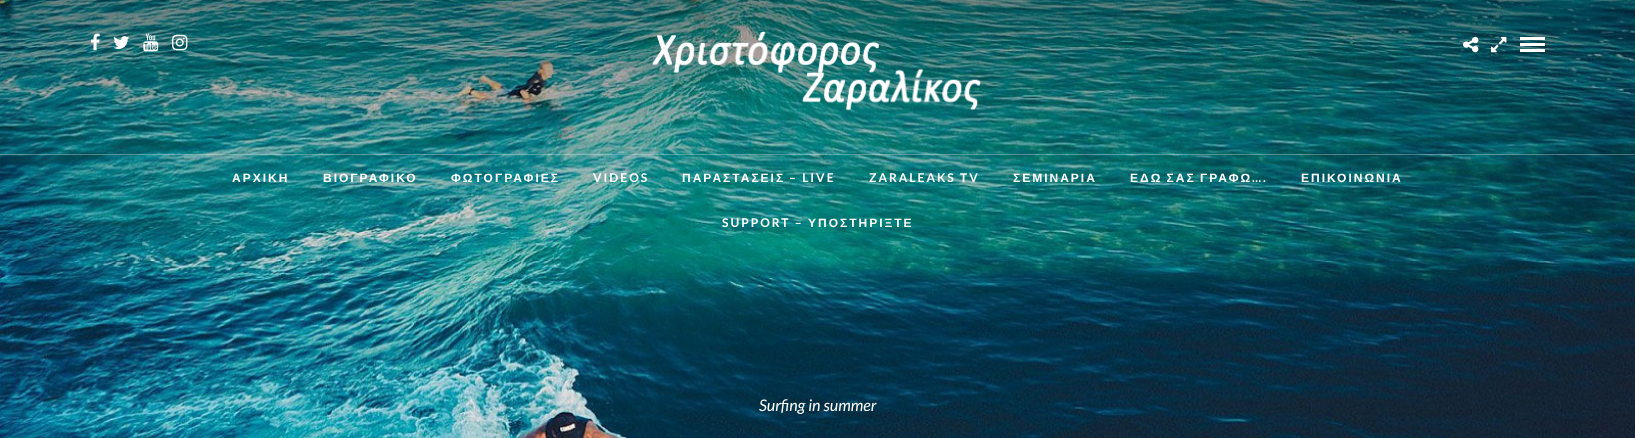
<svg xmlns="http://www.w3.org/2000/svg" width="1635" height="438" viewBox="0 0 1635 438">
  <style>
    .t1 { font: bold 12px Liberation Sans; letter-spacing: 2px; fill: #fff; }
    .t2 { font: bold 12px Lato; letter-spacing: 2px; fill: #fff; }
    .t3 { font: italic 16px Lato; fill: #fff; }
  </style>
  <rect width="100%" height="100%" fill="#fff"/>
  <image x="0" y="0" width="1635" height="438" href="images/1.png"/>
  <rect x="0" y="154" width="1635" height="1" fill="#ffffff4d"/>
  <image x="90" y="33" width="10" height="18" href="images/2.png"/>
  <image x="113" y="36" width="17" height="13" href="images/3.png"/>
  <image x="143" y="33" width="16" height="19" href="images/4.png"/>
  <image x="172" y="34" width="16" height="17" href="images/5.png"/>
  <image x="652" y="32" width="329" height="79" href="images/6.png"/>
  <image x="1463" y="36" width="16" height="17" href="images/7.png"/>
  <image x="1491" y="36" width="16" height="17" href="images/8.png"/>
  <rect x="1520" y="37" width="25" height="3" fill="#fff"/>
  <rect x="1520" y="43" width="25" height="3" fill="#fff"/>
  <rect x="1520" y="49" width="25" height="3" fill="#fff"/>
  <text x="232" y="182" class="t1">ΑΡΧΙΚΗ</text>
  <text x="323" y="182" class="t1">ΒΙΟΓΡΑΦΙΚΟ</text>
  <text x="451" y="182" class="t1">ΦΩΤΟΓΡΑΦΙΕΣ</text>
  <text x="593" y="182" class="t2">VIDEOS</text>
  <text x="682" y="182" class="t1">ΠΑΡΑΣΤΑΣΕΙΣ</text>
  <text x="789" y="182" class="t2">– LIVE</text>
  <text x="869" y="182" class="t2">ZARALEAKS TV</text>
  <text x="1013" y="182" class="t1">ΣΕΜΙΝΑΡΙΑ</text>
  <text x="1130" y="182" word-spacing="-1" class="t1">ΕΔΩ ΣΑΣ ΓΡΑΦΩ</text>
  <text x="1252" y="182" class="t2">….</text>
  <text x="1301" y="182" class="t1">ΕΠΙΚΟΙΝΩΝΙΑ</text>
  <text x="722" y="227" class="t2">SUPPORT –</text>
  <text x="808" y="227" class="t1">ΥΠΟΣΤΗΡΙΞΤΕ</text>
  <text x="759" y="411" class="t3">Surfing in summer</text>
</svg>
